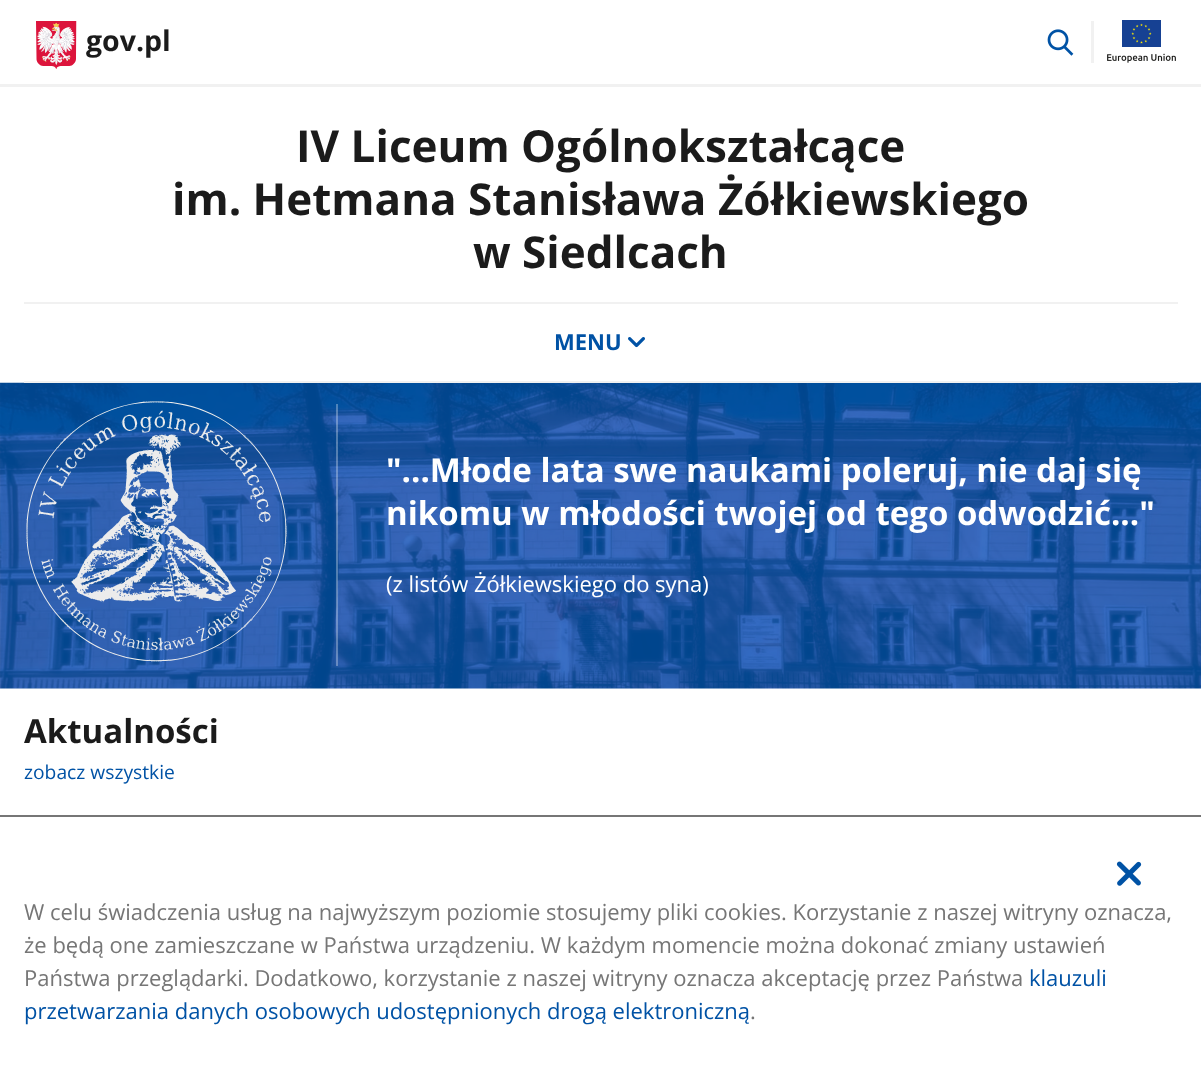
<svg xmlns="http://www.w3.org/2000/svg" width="1201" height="1068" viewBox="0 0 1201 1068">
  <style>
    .t1 { font: bold 28.5px Open Sans; fill: #1b1b1b; }
    .t2 { font: bold 44px Open Sans; fill: #1b1b1b; }
    .t3 { font: bold 22px Open Sans; fill: #0052a5; }
    .t4 { font: bold 33px Open Sans; fill: #fff; }
    .t5 { font: 22px Open Sans; fill: #fff; }
    .t6 { font: bold 33px Open Sans; fill: #1b1b1b; }
    .t7 { font: 19.25px Open Sans; fill: #0052a5; }
    .t8 { font: 22px Open Sans; fill: #767676; }
    .t9 { font: 22px Open Sans; fill: #0052a5; }
  </style>
  <rect width="100%" height="100%" fill="#fff"/>
  <rect x="0" y="84" width="1201" height="3" fill="#f1f1f1"/>
  <image x="36" y="21" width="41" height="48" href="images/1.png"/>
  <text x="86" y="51" class="t1">gov.pl</text>
  <image x="1047" y="29" width="27" height="27" href="images/2.png"/>
  <rect x="1091" y="21" width="3" height="42" fill="#f1f1f1"/>
  <image x="1107" y="20" width="69" height="43" href="images/3.png"/>
  <text x="296" y="162" class="t2">IV Liceum Ogólnokształcące</text>
  <text x="172" y="215" class="t2">im. Hetmana Stanisława Żółkiewskiego</text>
  <text x="473" y="268" class="t2">w Siedlcach</text>
  <rect x="24" y="302" width="1154" height="2" fill="#f1f1f1"/>
  <image x="0" y="382" width="1201" height="307" href="images/5.png"/>
  <rect x="24" y="381" width="1154" height="2" fill="#f1f1f1"/>
  <text x="554" y="350" class="t3">MENU</text>
  <image x="628" y="337" width="17" height="11" href="images/4.png"/>
  <image x="26" y="401" width="261" height="261" href="images/6.png"/>
  <rect x="336" y="404" width="2" height="262" fill="#ffffff4d"/>
  <text x="386" y="482" class="t4">"...Młode lata swe naukami poleruj, nie daj się</text>
  <text x="386" y="525" class="t4">nikomu w młodości twojej od tego odwodzić..."</text>
  <text x="386" y="592" class="t5">(z listów Żółkiewskiego do syna)</text>
  <text x="24" y="743" class="t6">Aktualności</text>
  <text x="24" y="779" class="t7">zobacz wszystkie</text>
  <rect x="0" y="815" width="1201" height="2" fill="#767676"/>
  <image x="1116" y="861" width="26" height="25" href="images/7.png"/>
  <text x="24" y="920" class="t8">W celu świadczenia usług na najwyższym poziomie stosujemy pliki cookies. Korzystanie z naszej witryny oznacza,</text>
  <text x="24" y="953" class="t8">że będą one zamieszczane w Państwa urządzeniu. W każdym momencie można dokonać zmiany ustawień</text>
  <text x="24" y="986" class="t8">Państwa przeglądarki. Dodatkowo, korzystanie z naszej witryny oznacza akceptację przez Państwa</text>
  <text x="1029" y="986" class="t9">klauzuli</text>
  <text x="24" y="1019" class="t9">przetwarzania danych osobowych udostępnionych drogą elektroniczną</text>
  <text x="750" y="1019" class="t8">.</text>
</svg>
